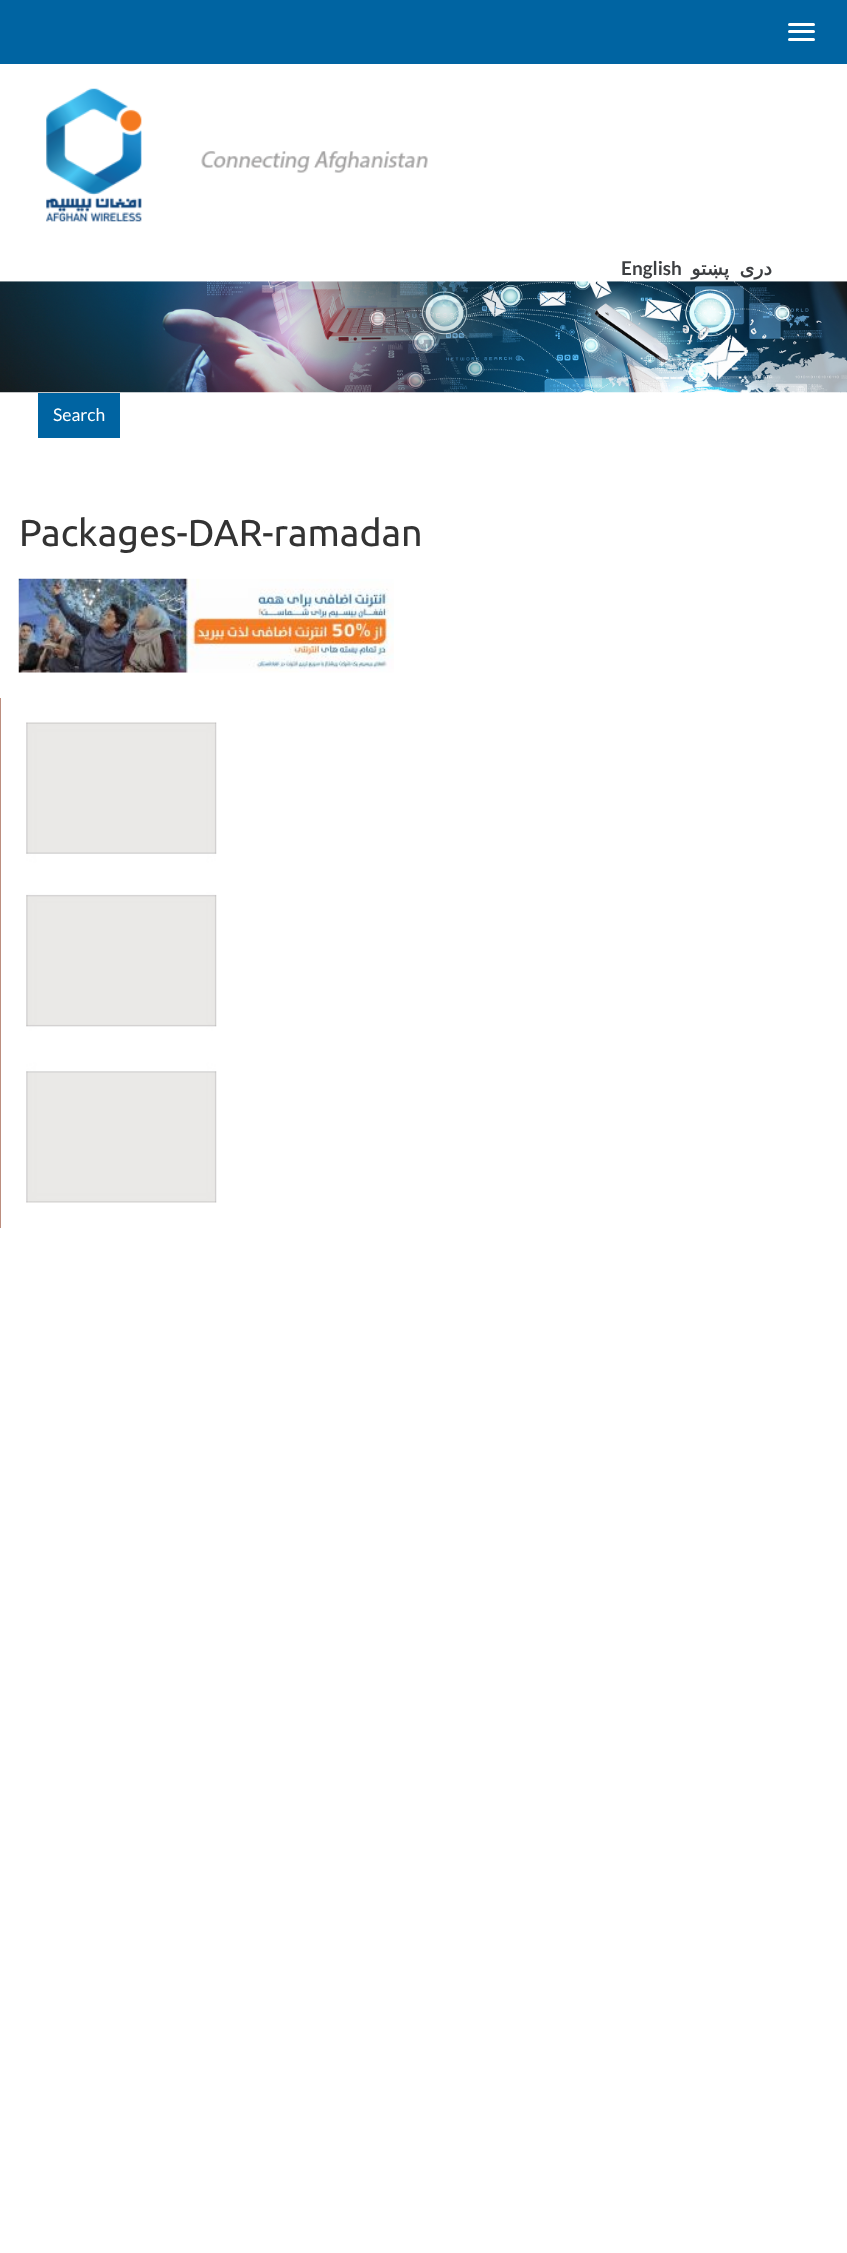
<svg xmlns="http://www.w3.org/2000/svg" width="847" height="2253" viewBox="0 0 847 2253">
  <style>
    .t1 { font: bold 19px Lato; fill: #3d3f42; }
    .t2 { font: bold 19px DejaVu Sans; direction: rtl; fill: #3d3f42; }
    .t3 { font: 17.5px Lato; fill: #fff; }
    .t4 { font: 37.5px Ubuntu; fill: #333; }
  </style>
  <rect width="100%" height="100%" fill="#fff"/>
  <rect x="0" y="0" width="847" height="64" fill="#0064a2"/>
  <rect x="788" y="23" width="27" height="3" rx="1.5" fill="#fff"/>
  <rect x="788" y="30" width="27" height="3" rx="1.5" fill="#fff"/>
  <rect x="788" y="38" width="27" height="3" rx="1.5" fill="#fff"/>
  <image x="46" y="88" width="382" height="134" href="images/1.png"/>
  <text x="621" y="275" class="t1">English</text>
  <text x="729" y="275" class="t2">پښتو</text>
  <text x="772" y="275" class="t2">دری</text>
  <image x="0" y="281" width="847" height="112" href="images/2.png"/>
  <rect x="38" y="393" width="82" height="45" fill="#0064a2"/>
  <text x="53" y="421" class="t3">Search</text>
  <text x="19" y="546" class="t4">Packages-DAR-ramadan</text>
  <image x="18" y="578" width="376" height="95" href="images/3.png"/>
  <rect x="0" y="698" width="1" height="530" fill="#bc8e7f"/>
  <image x="26" y="722" width="191" height="481" href="images/4.png"/>
</svg>
